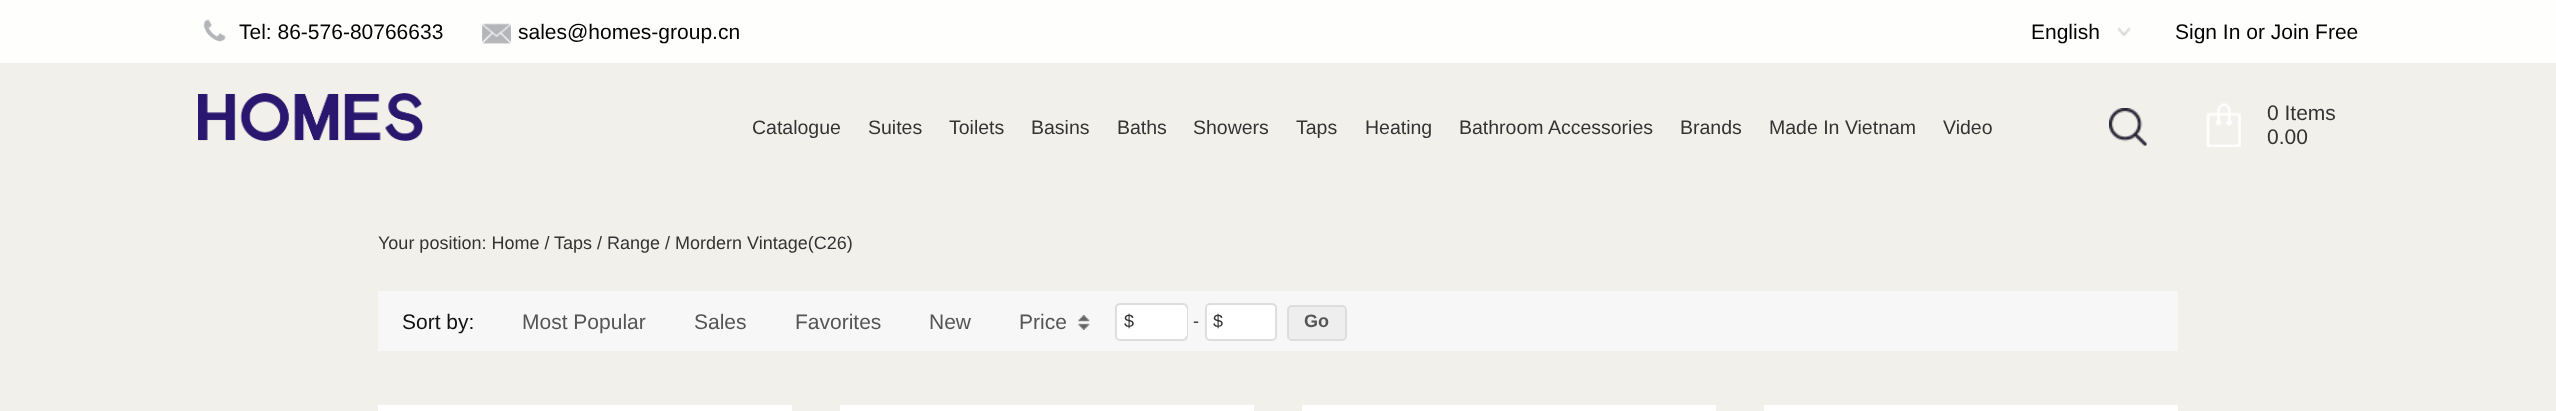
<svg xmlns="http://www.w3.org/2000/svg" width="2556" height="411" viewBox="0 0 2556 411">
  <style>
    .t1 { font: 21px Liberation Sans; fill: #000; }
    .t2 { font: 19.5px Liberation Sans; fill: #333; }
    .t3 { font: 21px Liberation Sans; fill: #333; }
    .t4 { font: 18px Liberation Sans; fill: #333; }
    .t5 { font: 21px Liberation Sans; fill: #111; }
    .t6 { font: 21px Liberation Sans; fill: #555; }
    .t7 { font: bold 18px Liberation Sans; fill: #555; }
  </style>
  <rect width="100%" height="100%" fill="#f2f0eb"/>
  <rect x="0" y="0" width="2556" height="63" fill="#fefefd"/>
  <image x="203" y="19" width="23" height="23" href="images/1.png"/>
  <text x="239" y="39" class="t1">Tel: 86-576-80766633</text>
  <image x="482" y="23" width="29" height="21" href="images/2.png"/>
  <text x="518" y="39" class="t1">sales@homes-group.cn</text>
  <image x="2117" y="27" width="14" height="10" href="images/3.png"/>
  <text x="2031" y="39" class="t1">English</text>
  <text x="2175" y="39" class="t1">Sign In or Join Free</text>
  <image x="198" y="93" width="225" height="48" href="images/4.png"/>
  <text x="752" y="134" class="t2">Catalogue</text>
  <text x="868" y="134" class="t2">Suites</text>
  <text x="949" y="134" class="t2">Toilets</text>
  <text x="1031" y="134" class="t2">Basins</text>
  <text x="1117" y="134" class="t2">Baths</text>
  <text x="1193" y="134" class="t2">Showers</text>
  <text x="1296" y="134" class="t2">Taps</text>
  <text x="1365" y="134" class="t2">Heating</text>
  <text x="1459" y="134" class="t2">Bathroom Accessories</text>
  <text x="1680" y="134" class="t2">Brands</text>
  <text x="1769" y="134" class="t2">Made In Vietnam</text>
  <text x="1943" y="134" class="t2">Video</text>
  <image x="2109" y="108" width="38" height="38" href="images/5.png"/>
  <image x="2206" y="103" width="35" height="44" href="images/6.png"/>
  <text x="2267" y="120" class="t3">0 Items</text>
  <text x="2267" y="144" class="t3">0.00</text>
  <text x="378" y="249" class="t4">Your position: Home /</text>
  <text x="554" y="249" class="t4">Taps / Range / Mordern Vintage(C26)</text>
  <rect x="378" y="291" width="1800" height="60" fill="#f7f7f7"/>
  <text x="402" y="329" class="t5">Sort by:</text>
  <text x="522" y="329" class="t6">Most Popular</text>
  <text x="694" y="329" class="t6">Sales</text>
  <text x="795" y="329" class="t6">Favorites</text>
  <text x="929" y="329" class="t6">New</text>
  <text x="1019" y="329" class="t6">Price</text>
  <image x="1078" y="315" width="12" height="15" href="images/7.png"/>
  <rect x="1116" y="304" width="71" height="36" rx="4" fill="#fff" stroke="#ddd" stroke-width="2"/>
  <text x="1124" y="327" class="t4">$</text>
  <rect x="1186" y="308" width="1" height="28" fill="#fff"/>
  <text x="1193" y="327" class="t4">-</text>
  <rect x="1206" y="304" width="70" height="36" rx="4" fill="#fff" stroke="#ddd" stroke-width="2"/>
  <text x="1213" y="327" class="t4">$</text>
  <rect x="1288" y="306" width="58" height="34" rx="4" fill="#eee" stroke="#ddd" stroke-width="2"/>
  <text x="1304" y="327" class="t7">Go</text>
  <rect x="378" y="405" width="414" height="6" fill="#fff"/>
  <rect x="840" y="405" width="414" height="6" fill="#fff"/>
  <rect x="1302" y="405" width="414" height="6" fill="#fff"/>
  <rect x="1764" y="405" width="414" height="6" fill="#fff"/>
</svg>
